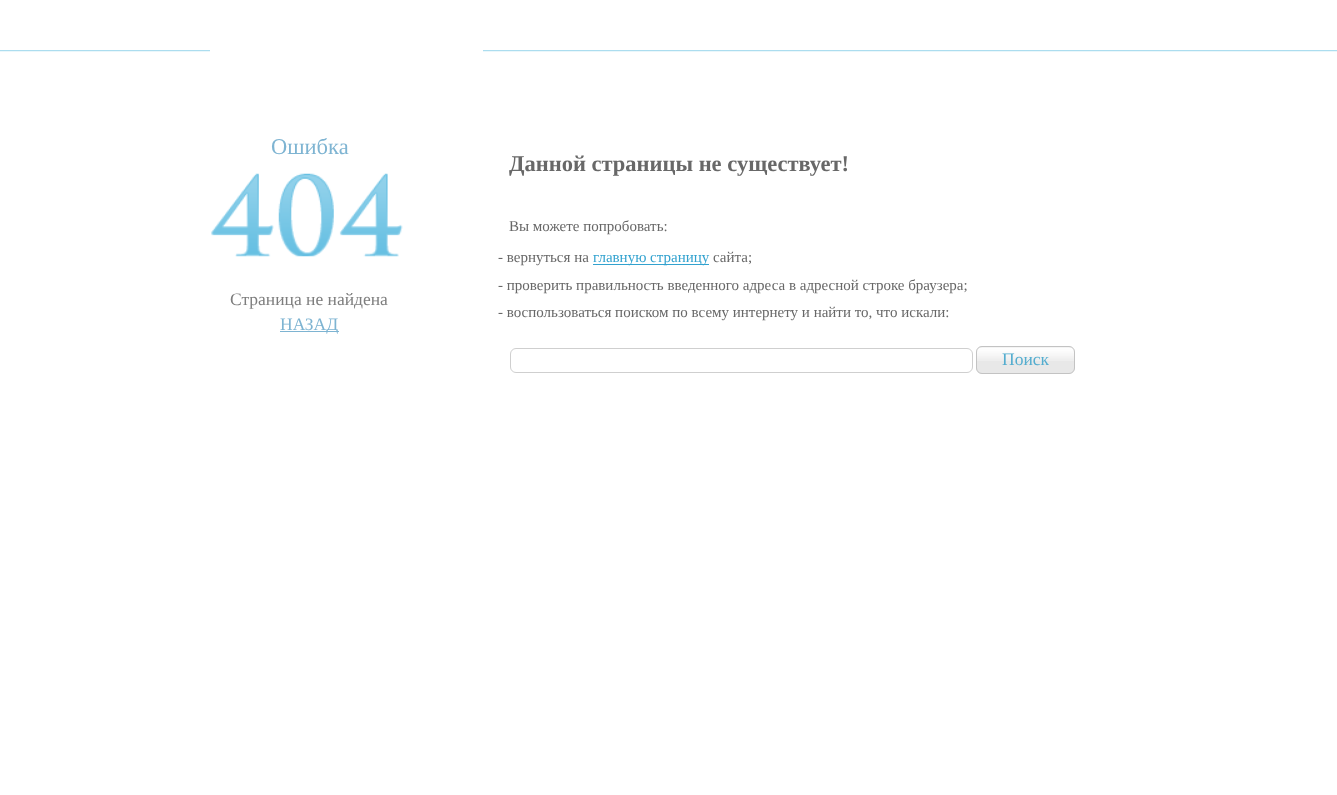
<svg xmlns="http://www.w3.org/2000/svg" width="1337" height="795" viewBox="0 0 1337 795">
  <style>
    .t1 { font: 22.5px Liberation Serif; fill: #7eb4d2; }
    .t2 { font: 17.5px Liberation Serif; fill: #7e7e7e; }
    .t3 { font: 17.5px Liberation Serif; fill: #7eb4d2; }
    .t4 { font: bold 22.5px Liberation Serif; fill: #686868; }
    .t5 { font: 15px Liberation Serif; fill: #686868; }
    .t6 { font: 15px Liberation Serif; fill: #32a2cf; }
    .t7 { font: 17.5px Liberation Serif; fill: #54adcf; }
  </style>
  <rect width="100%" height="100%" fill="#fff"/>
  <image x="0" y="50" width="1337" height="2" href="images/1.png"/>
  <rect x="210" y="50" width="273" height="2" fill="#fff"/>
  <text x="271" y="154" class="t1">Ошибка</text>
  <image x="211" y="173" width="192" height="84" href="images/2.png"/>
  <text x="230" y="305" class="t2">Страница не найдена</text>
  <rect x="280" y="331" width="59" height="1" fill="#7eb4d2"/>
  <text x="280" y="330" class="t3">НАЗАД</text>
  <text x="509" y="171" class="t4">Данной страницы не существует!</text>
  <text x="509" y="231" class="t5">Вы можете попробовать:</text>
  <text x="498" y="262" class="t5">- вернуться на</text>
  <rect x="593" y="264" width="116" height="1" fill="#32a2cf"/>
  <text x="593" y="262" class="t6">главную страницу</text>
  <text x="713" y="262" class="t5">сайта;</text>
  <text x="498" y="290" class="t5">- проверить правильность введенного адреса в адресной строке браузера;</text>
  <text x="498" y="317" class="t5">- воспользоваться поиском по всему интернету и найти то, что искали:</text>
  <rect x="510.5" y="348.5" width="462" height="24" rx="5.5" fill="none" stroke="#cfcfcf"/>
  <rect x="976" y="346" width="99" height="28" rx="6" fill="#e8e8e8"/>
  <image x="976" y="347" width="99" height="14" href="images/3.png"/>
  <rect x="976.5" y="346.5" width="98" height="27" rx="5.5" fill="none" stroke="#c3c3c3"/>
  <text x="1002" y="365" class="t7">Поиск</text>
</svg>
